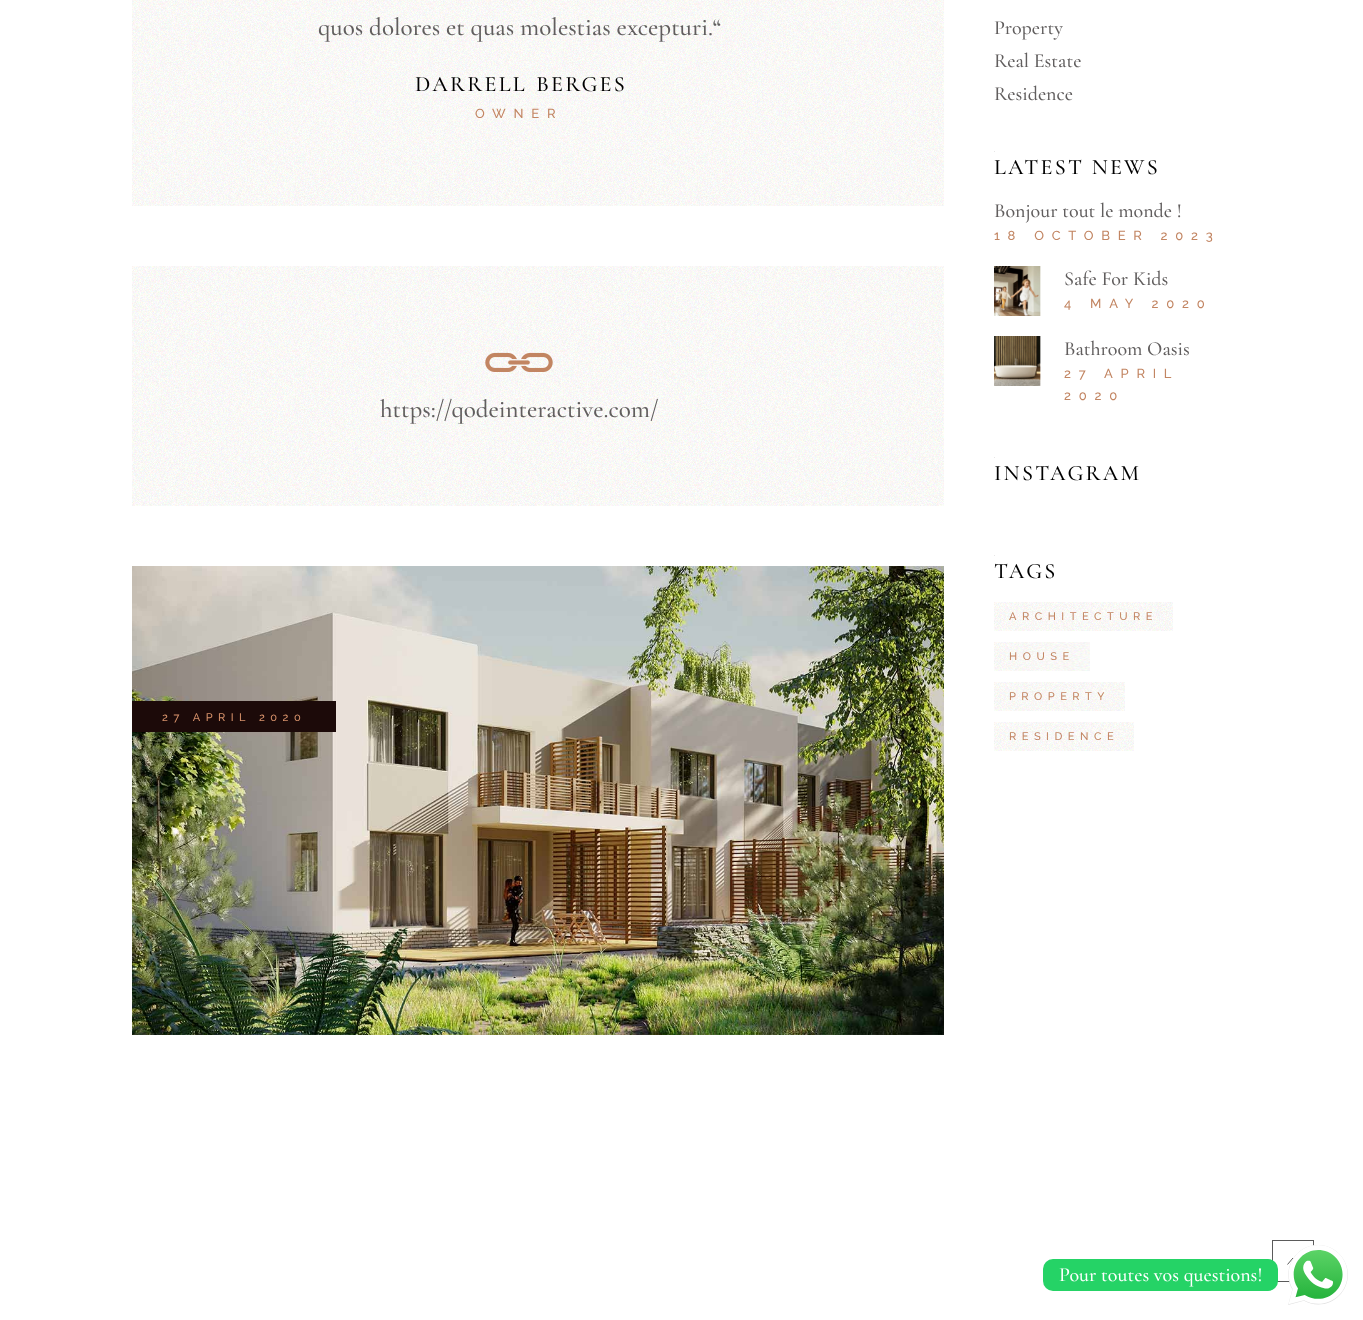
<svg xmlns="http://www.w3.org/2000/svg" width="1363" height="1320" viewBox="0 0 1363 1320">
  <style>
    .t1 { font: 500 25px Cormorant Garamond; fill: #615e5e; }
    .t2 { font: 500 22px Cormorant Garamond; letter-spacing: 2.25px; fill: #000; }
    .t3 { font: 500 13px Raleway; letter-spacing: 7.75px; fill: #c28562; }
    .t4 { font: 500 11px Raleway; letter-spacing: 5.5px; fill: #d7926b; }
    .t5 { font: 500 20px Cormorant Garamond; fill: #615e5e; }
    .t6 { font: 500 11px Raleway; letter-spacing: 5.5px; fill: #c28562; }
    .t7 { font: 500 20px Cormorant Garamond; fill: #fff; }
  </style>
  <rect width="100%" height="100%" fill="#fff"/>
  <image x="132" y="0" width="812" height="206" href="images/1.png"/>
  <text x="318" y="35" class="t1">quos dolores et quas molestias excepturi.“</text>
  <text x="415" y="91" word-spacing="2" class="t2">DARRELL BERGES</text>
  <text x="475" y="118" class="t3">OWNER</text>
  <image x="132" y="266" width="812" height="240" href="images/2.png"/>
  <image x="485" y="352" width="68" height="20" href="images/3.png"/>
  <text x="380" y="417" class="t1">https://qodeinteractive.com/</text>
  <image x="132" y="566" width="812" height="469" href="images/4.png"/>
  <rect x="132" y="701" width="204" height="31" fill="#1c0a09"/>
  <text x="162" y="721" class="t4">27 APRIL 2020</text>
  <text x="994" y="34" class="t5">Property</text>
  <text x="994" y="67" class="t5">Real Estate</text>
  <text x="994" y="100" class="t5">Residence</text>
  <rect x="994" y="151" width="1" height="1" fill="#e7e6e6"/>
  <text x="994" y="174" class="t2">LATEST NEWS</text>
  <text x="994" y="217" class="t5">Bonjour tout le monde !</text>
  <text x="994" y="240" class="t3">18 OCTOBER 2023</text>
  <image x="994" y="266" width="47" height="50" href="images/5.png"/>
  <text x="1064" y="285" class="t5">Safe For Kids</text>
  <text x="1064" y="308" class="t3">4 MAY 2020</text>
  <image x="994" y="336" width="47" height="50" href="images/6.png"/>
  <text x="1064" y="355" class="t5">Bathroom Oasis</text>
  <text x="1064" y="378" class="t3">27 APRIL</text>
  <text x="1064" y="400" class="t3">2020</text>
  <rect x="994" y="457" width="1" height="1" fill="#e7e6e6"/>
  <text x="994" y="480" class="t2">INSTAGRAM</text>
  <rect x="994" y="555" width="1" height="1" fill="#e7e6e6"/>
  <text x="994" y="578" class="t2">TAGS</text>
  <image x="994" y="602" width="179" height="29" href="images/7.png"/>
  <text x="1009" y="620" class="t6">ARCHITECTURE</text>
  <image x="994" y="642" width="96" height="29" href="images/8.png"/>
  <text x="1009" y="660" class="t6">HOUSE</text>
  <image x="994" y="682" width="131" height="29" href="images/9.png"/>
  <text x="1009" y="700" class="t6">PROPERTY</text>
  <image x="994" y="722" width="140" height="29" href="images/10.png"/>
  <text x="1009" y="740" class="t6">RESIDENCE</text>
  <rect x="1272.5" y="1240.5" width="41" height="41" fill="none" stroke="#5b5b5b"/>
  <path d="M1287.5 1264.5L1293 1258L1298.5 1264.5" fill="none" stroke="#5b5b5b"/>
  <rect x="1043" y="1259" width="235" height="32" rx="10" fill="#25d366"/>
  <text x="1059" y="1281" class="t7">Pour toutes vos questions!</text>
  <image x="1288" y="1245" width="60" height="60" href="images/11.png"/>
</svg>
